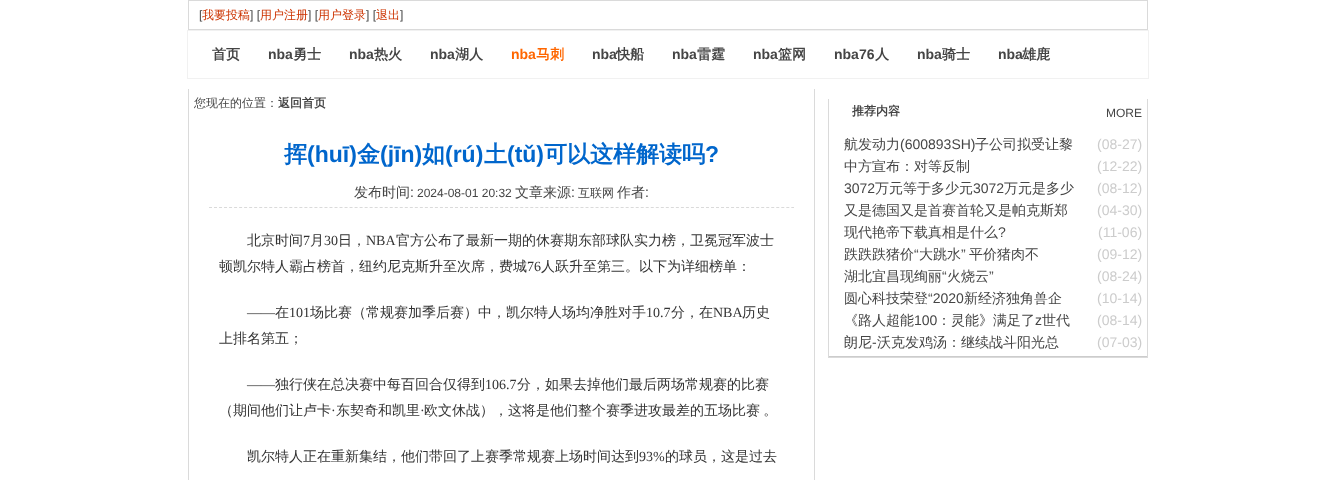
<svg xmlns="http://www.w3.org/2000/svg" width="1336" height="480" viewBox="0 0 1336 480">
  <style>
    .t1 { font: 12px Liberation Sans; fill: #454545; }
    .t2 { font: 500 12px WenQuanYi Zen Hei; fill: #c30; }
    .t3 { font: bold 14px WenQuanYi Zen Hei; fill: #454545; }
    .t4 { font: bold 14px Liberation Sans; fill: #454545; }
    .t5 { font: bold 14px Liberation Sans; fill: #f60; }
    .t6 { font: bold 14px WenQuanYi Zen Hei; fill: #f60; }
    .t7 { font: 500 12px WenQuanYi Zen Hei; fill: #454545; }
    .t8 { font: bold 12px WenQuanYi Zen Hei; fill: #454545; }
    .t9 { font: bold 23px WenQuanYi Zen Hei; fill: #06c; }
    .t10 { font: bold 23px Liberation Sans; fill: #06c; }
    .t11 { font: 500 14px WenQuanYi Zen Hei; fill: #454545; }
    .t12 { font: 14px Liberation Sans; fill: #454545; }
    .t13 { font: 500 14px WenQuanYi Zen Hei; fill: #333; }
    .t14 { font: 14px Liberation Serif; fill: #333; }
    .t15 { font: 14px Liberation Sans; fill: #ccc; }
  </style>
  <rect width="100%" height="100%" fill="#fff"/>
  <rect x="188.5" y="0.5" width="959" height="29" fill="none" stroke="#dadada"/>
  <text x="199" y="19" class="t1">[</text>
  <text x="202" y="19" class="t2">我要投稿</text>
  <text x="250" y="19" class="t1">] [</text>
  <text x="260" y="19" class="t2">用户注册</text>
  <text x="308" y="19" class="t1">] [</text>
  <text x="318" y="19" class="t2">用户登录</text>
  <text x="366" y="19" class="t1">] [</text>
  <text x="376" y="19" class="t2">退出</text>
  <text x="400" y="19" class="t1">]</text>
  <rect x="187.5" y="30.5" width="961" height="48" fill="none" stroke="#f1f1f1"/>
  <text x="212" y="59" class="t3">首页</text>
  <text x="268" y="59" class="t4">nba</text>
  <text x="293" y="59" class="t3">勇士</text>
  <text x="349" y="59" class="t4">nba</text>
  <text x="374" y="59" class="t3">热火</text>
  <text x="430" y="59" class="t4">nba</text>
  <text x="455" y="59" class="t3">湖人</text>
  <text x="511" y="59" class="t5">nba</text>
  <text x="536" y="59" class="t6">马刺</text>
  <text x="592" y="59" class="t4">nba</text>
  <text x="616" y="59" class="t3">快船</text>
  <text x="672" y="59" class="t4">nba</text>
  <text x="697" y="59" class="t3">雷霆</text>
  <text x="753" y="59" class="t4">nba</text>
  <text x="778" y="59" class="t3">篮网</text>
  <text x="834" y="59" class="t4">nba76</text>
  <text x="875" y="59" class="t3">人</text>
  <text x="917" y="59" class="t4">nba</text>
  <text x="942" y="59" class="t3">骑士</text>
  <text x="998" y="59" class="t4">nba</text>
  <text x="1022" y="59" class="t3">雄鹿</text>
  <rect x="814" y="89" width="1" height="391" fill="#dadada"/>
  <rect x="188" y="89" width="1" height="391" fill="#dadada"/>
  <text x="194" y="107" class="t7">您现在的位置：</text>
  <text x="278" y="107" class="t8">返回首页</text>
  <text x="284" y="162" class="t9">挥</text>
  <text x="307" y="162" class="t10">(huī)</text>
  <text x="357" y="162" class="t9">金</text>
  <text x="380" y="162" class="t10">(jīn)</text>
  <text x="422" y="162" class="t9">如</text>
  <text x="445" y="162" class="t10">(rú)</text>
  <text x="484" y="162" class="t9">土</text>
  <text x="507" y="162" class="t10">(tǔ)</text>
  <text x="544" y="162" class="t9">可以这样解读吗</text>
  <text x="705" y="162" class="t10">?</text>
  <path d="M209 207.5H794" fill="none" stroke="#dadada" stroke-dasharray="3 2.02"/>
  <text x="354" y="197" class="t11">发布时间</text>
  <text x="410" y="197" class="t12">:</text>
  <text x="417" y="197" class="t1">2024-08-01 20:32</text>
  <text x="515" y="197" class="t11">文章来源</text>
  <text x="571" y="197" class="t12">:</text>
  <text x="578" y="197" class="t7">互联网</text>
  <text x="617" y="197" class="t11">作者</text>
  <text x="645" y="197" class="t12">:</text>
  <text x="247" y="245" class="t13">北京时间</text>
  <text x="303" y="245" class="t14">7</text>
  <text x="310" y="245" class="t13">月</text>
  <text x="324" y="245" class="t14">30</text>
  <text x="338" y="245" class="t13">日，</text>
  <text x="366" y="245" class="t14">NBA</text>
  <text x="396" y="245" class="t13">官方公布了最新一期的休赛期东部球队实力榜，卫冕冠军波士</text>
  <text x="219" y="271" class="t13">顿凯尔特人霸占榜首，纽约尼克斯升至次席，费城</text>
  <text x="527" y="271" class="t14">76</text>
  <text x="541" y="271" class="t13">人跃升至第三。以下为详细榜单：</text>
  <text x="247" y="317" class="t14">——</text>
  <text x="275" y="317" class="t13">在</text>
  <text x="289" y="317" class="t14">101</text>
  <text x="310" y="317" class="t13">场比赛（常规赛加季后赛）中，凯尔特人场均净胜对手</text>
  <text x="646" y="317" class="t14">10.7</text>
  <text x="671" y="317" class="t13">分，在</text>
  <text x="713" y="317" class="t14">NBA</text>
  <text x="742" y="317" class="t13">历史</text>
  <text x="219" y="343" class="t13">上排名第五；</text>
  <text x="247" y="389" class="t14">——</text>
  <text x="275" y="389" class="t13">独行侠在总决赛中每百回合仅得到</text>
  <text x="485" y="389" class="t14">106.7</text>
  <text x="517" y="389" class="t13">分，如果去掉他们最后两场常规赛的比赛</text>
  <text x="219" y="415" class="t13">（期间他们让卢卡</text>
  <text x="331" y="415" class="t14">·</text>
  <text x="336" y="415" class="t13">东契奇和凯里</text>
  <text x="420" y="415" class="t14">·</text>
  <text x="424" y="415" word-spacing="-1" class="t13">欧文休战），这将是他们整个赛季进攻最差的五场比赛 。</text>
  <text x="247" y="461" class="t13">凯尔特人正在重新集结，他们带回了上赛季常规赛上场时间达到</text>
  <text x="639" y="461" class="t14">93%</text>
  <text x="665" y="461" class="t13">的球员，这是过去</text>
  <rect x="1147" y="99" width="1" height="259" fill="#dadada"/>
  <rect x="828" y="357" width="320" height="1" fill="#dadada"/>
  <rect x="828" y="99" width="1" height="259" fill="#dadada"/>
  <text x="852" y="115" class="t8">推荐内容</text>
  <text x="1106" y="117" class="t1">MORE</text>
  <rect x="829" y="356" width="318" height="1" fill="#ccc"/>
  <text x="844" y="149" class="t11">航发动力</text>
  <text x="900" y="149" class="t12">(600893SH)</text>
  <text x="975" y="149" class="t11">子公司拟受让黎</text>
  <text x="1097" y="149" class="t15">(08-27)</text>
  <text x="844" y="171" class="t11">中方宣布：对等反制</text>
  <text x="1097" y="171" class="t15">(12-22)</text>
  <text x="844" y="193" class="t12">3072</text>
  <text x="875" y="193" class="t11">万元等于多少元</text>
  <text x="973" y="193" class="t12">3072</text>
  <text x="1004" y="193" class="t11">万元是多少</text>
  <text x="1097" y="193" class="t15">(08-12)</text>
  <text x="844" y="215" class="t11">又是德国又是首赛首轮又是帕克斯郑</text>
  <text x="1097" y="215" class="t15">(04-30)</text>
  <text x="844" y="237" class="t11">现代艳帝下载真相是什么</text>
  <text x="998" y="237" class="t12">?</text>
  <text x="1098" y="237" class="t15">(11-06)</text>
  <text x="844" y="259" class="t11">跌跌跌猪价</text>
  <text x="914" y="259" class="t12">“</text>
  <text x="919" y="259" class="t11">大跳水</text>
  <text x="961" y="259" class="t12">”</text>
  <text x="969" y="259" class="t11">平价猪肉不</text>
  <text x="1097" y="259" class="t15">(09-12)</text>
  <text x="844" y="281" class="t11">湖北宜昌现绚丽</text>
  <text x="942" y="281" class="t12">“</text>
  <text x="947" y="281" class="t11">火烧云</text>
  <text x="989" y="281" class="t12">”</text>
  <text x="1097" y="281" class="t15">(08-24)</text>
  <text x="844" y="303" class="t11">圆心科技荣登</text>
  <text x="928" y="303" class="t12">“2020</text>
  <text x="964" y="303" class="t11">新经济独角兽企</text>
  <text x="1097" y="303" class="t15">(10-14)</text>
  <text x="844" y="325" class="t11">《路人超能</text>
  <text x="914" y="325" class="t12">100</text>
  <text x="937" y="325" class="t11">：灵能》满足了</text>
  <text x="1035" y="325" class="t12">z</text>
  <text x="1042" y="325" class="t11">世代</text>
  <text x="1097" y="325" class="t15">(08-14)</text>
  <text x="844" y="347" class="t11">朗尼</text>
  <text x="872" y="347" class="t12">-</text>
  <text x="877" y="347" class="t11">沃克发鸡汤：继续战斗阳光总</text>
  <text x="1097" y="347" class="t15">(07-03)</text>
</svg>
